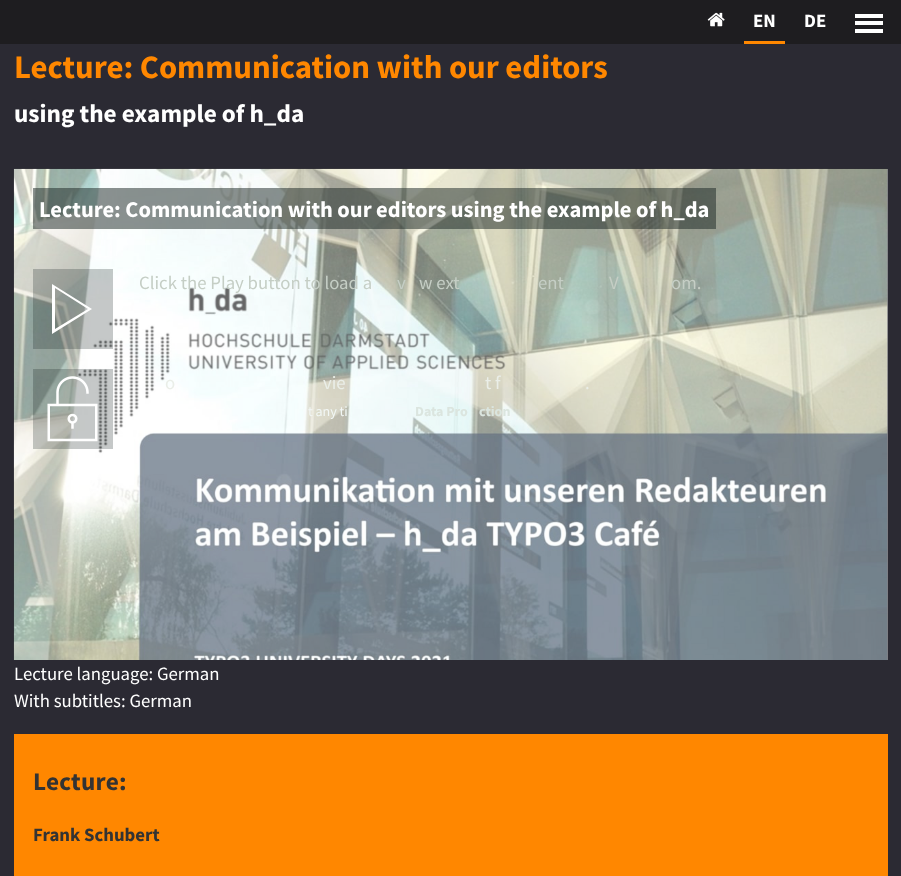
<svg xmlns="http://www.w3.org/2000/svg" width="901" height="876" viewBox="0 0 901 876">
  <style>
    .t1 { font: bold 18.75px Source Sans Pro; fill: #fff; }
    .t2 { font: bold 32.8px Source Sans Pro; fill: #ff8700; }
    .t3 { font: bold 25.25px Source Sans Pro; fill: #fff; }
    .t4 { font: bold 22.5px Source Sans Pro; fill: #fff; }
    .t5 { font: 18.75px Source Sans Pro; fill: #c5cec5; }
    .t6 { font: 18.75px Source Sans Pro; fill: #eaeee8; }
    .t7 { font: 14px Source Sans Pro; fill: #f2f7f5; }
    .t8 { font: bold 14px Source Sans Pro; fill: #dbe5df; }
    .t9 { font: 18.75px Source Sans Pro; fill: #fff; }
    .t10 { font: bold 25.25px Source Sans Pro; letter-spacing: 0.25px; fill: #333; }
    .t11 { font: bold 18.75px Source Sans Pro; fill: #333; }
  </style>
  <rect width="100%" height="100%" fill="#2b2a33"/>
  <rect x="887" y="169" width="1" height="491" fill="#807f85"/>
  <rect x="0" y="0" width="901" height="44" fill="#1e1d20"/>
  <image x="707" y="12" width="18" height="15" href="images/1.png"/>
  <rect x="744" y="41" width="41" height="3" fill="#ff8700"/>
  <text x="753" y="27" class="t1">EN</text>
  <text x="804" y="27" class="t1">DE</text>
  <text x="14" y="78" class="t2">Lecture: Communication with our editors</text>
  <text x="14" y="122" class="t3">using the example of h_da</text>
  <image x="13" y="168" width="875" height="492" href="images/2.png"/>
  <rect x="33" y="188" width="683" height="41" fill="#17232280"/>
  <text x="39" y="217" class="t4">Lecture: Communication with our editors using the example of h_da</text>
  <rect x="33" y="269" width="80" height="80" fill="#17232240"/>
  <path d="M55 288L88 309L55 329V288M52 284V334L92 309Z" fill="#fff"/>
  <text x="139" y="289" class="t5">Click the Play button to load a</text>
  <text x="397" y="289" class="t5">v</text>
  <text x="419" y="289" class="t5">w ext</text>
  <text x="538" y="289" class="t5">ent</text>
  <text x="609" y="289" class="t5">V</text>
  <text x="671" y="289" class="t5">om.</text>
  <rect x="33" y="369" width="80" height="80" fill="#17232240"/>
  <image x="47" y="376" width="51" height="66" href="images/3.png"/>
  <text x="165" y="389" class="t6">o</text>
  <text x="323" y="389" class="t6">vie</text>
  <text x="485" y="389" class="t6">t f</text>
  <text x="585" y="389" class="t6">.</text>
  <text x="308" y="416" class="t7">t any ti</text>
  <text x="415" y="416" class="t8">Data Pro</text>
  <text x="479" y="416" class="t8">ction</text>
  <text x="14" y="680" class="t9">Lecture language: German</text>
  <text x="14" y="707" class="t9">With subtitles: German</text>
  <rect x="14" y="734" width="874" height="142" fill="#ff8700"/>
  <text x="33" y="790" class="t10">Lecture:</text>
  <text x="33" y="841" class="t11">Frank Schubert</text>
  <rect x="855" y="14" width="28" height="4" fill="#fff"/>
  <rect x="855" y="21" width="28" height="4" fill="#fff"/>
  <rect x="855" y="29" width="28" height="4" fill="#fff"/>
</svg>
